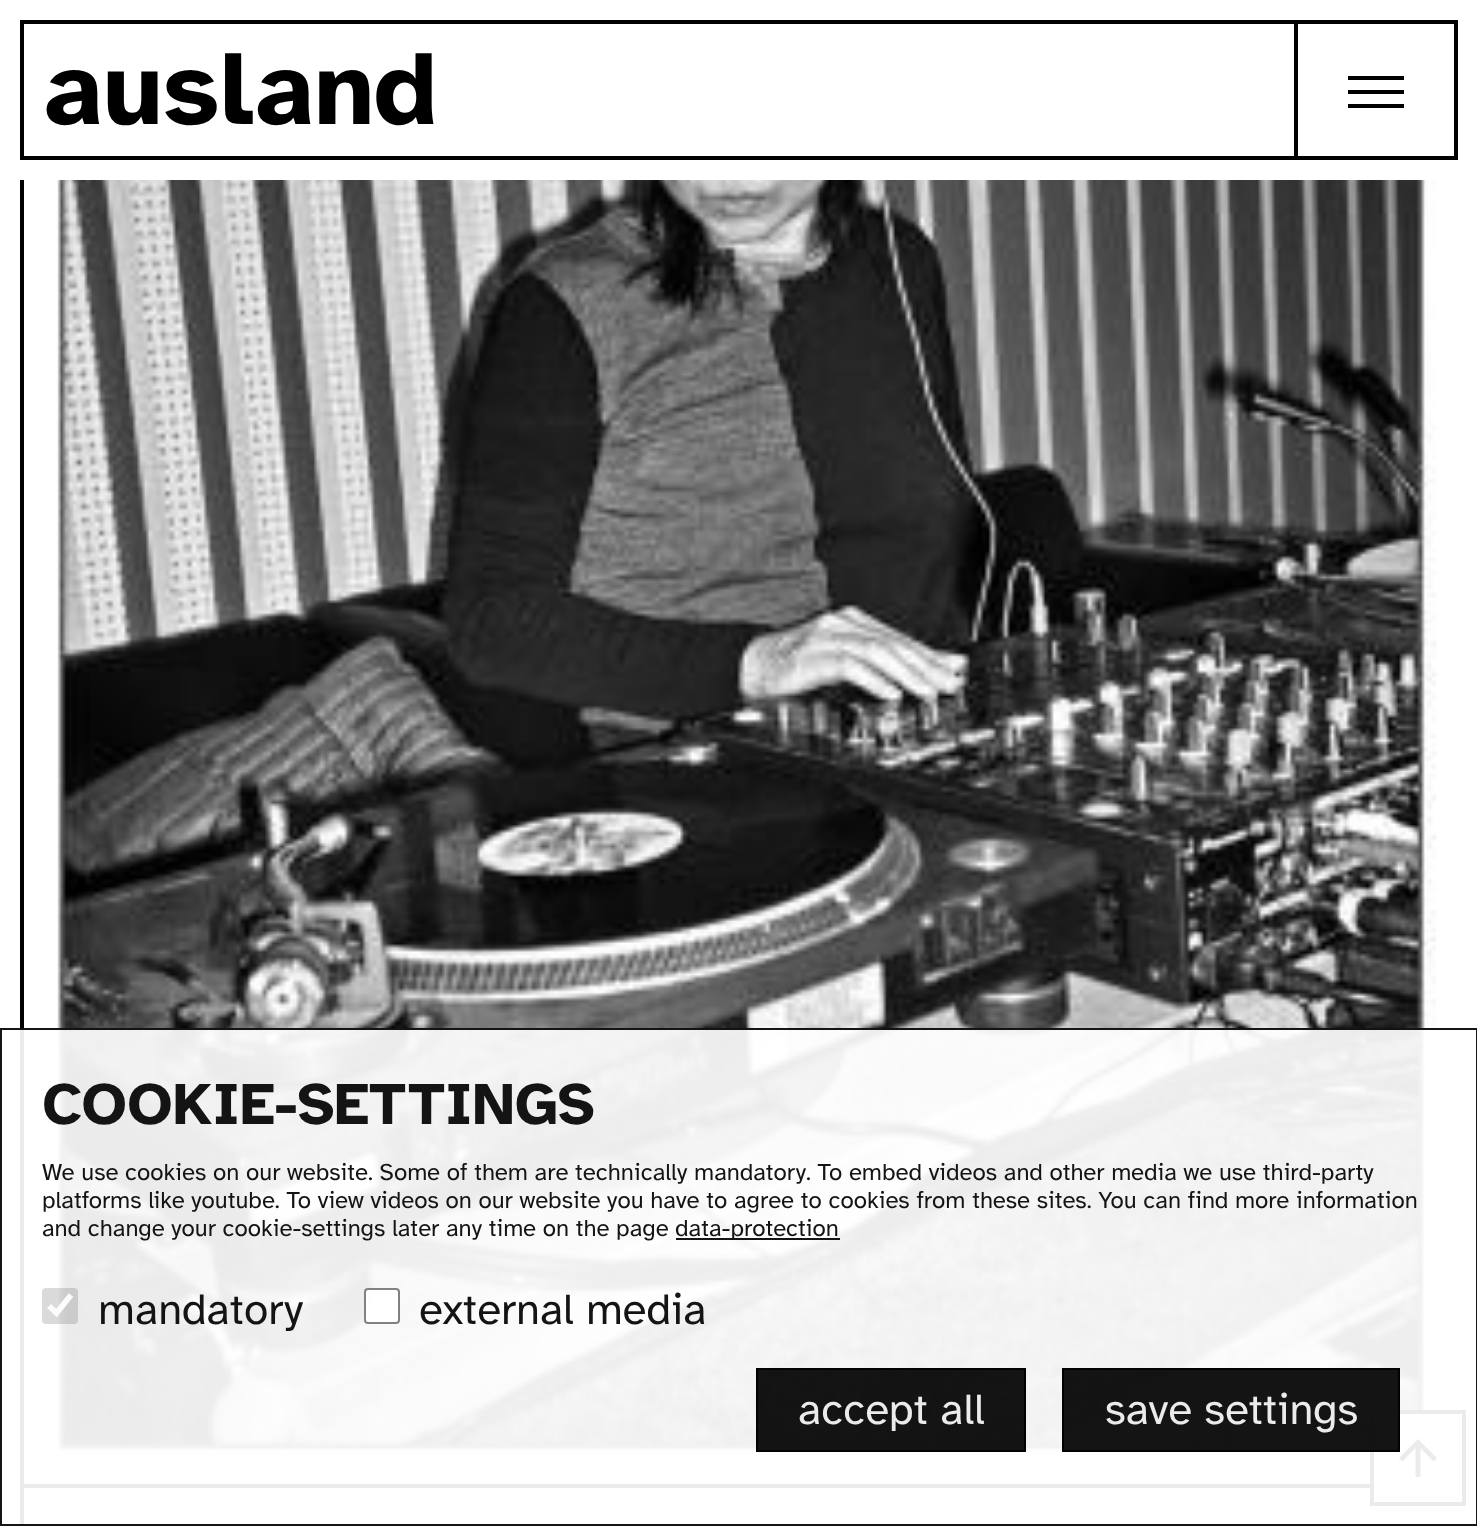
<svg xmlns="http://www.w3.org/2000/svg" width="1477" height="1526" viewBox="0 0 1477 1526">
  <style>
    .t1 { font: bold 106px Atkinson Hyperlegible; fill: #000; }
    .t2 { font: bold 60px Atkinson Hyperlegible; fill: #141414; }
    .t3 { font: 24px Atkinson Hyperlegible; fill: #141414; }
    .t4 { font: 44px Atkinson Hyperlegible; fill: #141414; }
    .t5 { font: 44px Atkinson Hyperlegible; fill: #ebebeb; }
  </style>
  <rect width="100%" height="100%" fill="#fff"/>
  <rect x="22" y="22" width="1274" height="136" fill="none" stroke="#000" stroke-width="4"/>
  <text x="44" y="124" class="t1">ausland</text>
  <rect x="1298" y="20" width="160" height="4" fill="#000"/>
  <rect x="1454" y="20" width="4" height="140" fill="#000"/>
  <rect x="1298" y="156" width="160" height="4" fill="#000"/>
  <rect x="1348" y="90" width="56" height="4" fill="#000"/>
  <rect x="1348" y="76" width="56" height="4" fill="#000"/>
  <rect x="1348" y="104" width="56" height="4" fill="#000"/>
  <rect x="20" y="180" width="4" height="1346" fill="#000"/>
  <rect x="24" y="1484" width="1346" height="4" fill="#000"/>
  <image x="57" y="180" width="1380" height="1271" href="images/1.png"/>
  <rect x="1374" y="1414" width="62" height="37" fill="#fff"/>
  <path d="M1420.5 1477V1448L1433.5 1461.5L1437 1458L1418 1439L1399 1458L1402.5 1461.5L1415.5 1448V1477Z" fill="#000"/>
  <rect x="1372" y="1412" width="92" height="92" fill="none" stroke="#000" stroke-width="4"/>
  <rect x="20" y="1028" width="1446" height="498" fill="#ffffffeb"/>
  <rect x="1" y="1029" width="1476" height="496" fill="none" stroke="#000000eb" stroke-width="2"/>
  <text x="42" y="1124" class="t2">COOKIE-SETTINGS</text>
  <text x="42" y="1180" class="t3">We use cookies on our website. Some of them are technically mandatory. To embed videos and other media we use third-party</text>
  <text x="42" y="1208" class="t3">platforms like youtube. To view videos on our website you have to agree to cookies from these sites. You can find more information</text>
  <text x="42" y="1236" class="t3">and change your cookie-settings later any time on the page</text>
  <rect x="676" y="1238" width="164" height="2" fill="#000000eb"/>
  <text x="675" y="1236" class="t3">data-protection</text>
  <rect x="42" y="1288" width="36" height="36" rx="4" fill="#76767645"/>
  <path d="M49 1306L56.5 1313L71 1295" fill="none" stroke="#ffffffeb" stroke-width="5.8"/>
  <text x="98" y="1324" class="t4">mandatory</text>
  <rect x="364" y="1288" width="36" height="36" rx="4" fill="#ffffffeb"/>
  <rect x="365" y="1289" width="34" height="34" rx="3" fill="none" stroke="#767676eb" stroke-width="2"/>
  <text x="419" y="1324" class="t4">external media</text>
  <rect x="757" y="1369" width="268" height="82" fill="#000000eb" stroke="#020202" stroke-width="2"/>
  <text x="798" y="1424" class="t5">accept all</text>
  <rect x="1063" y="1369" width="336" height="82" fill="#000000eb" stroke="#020202" stroke-width="2"/>
  <text x="1105" y="1424" class="t5">save settings</text>
</svg>
